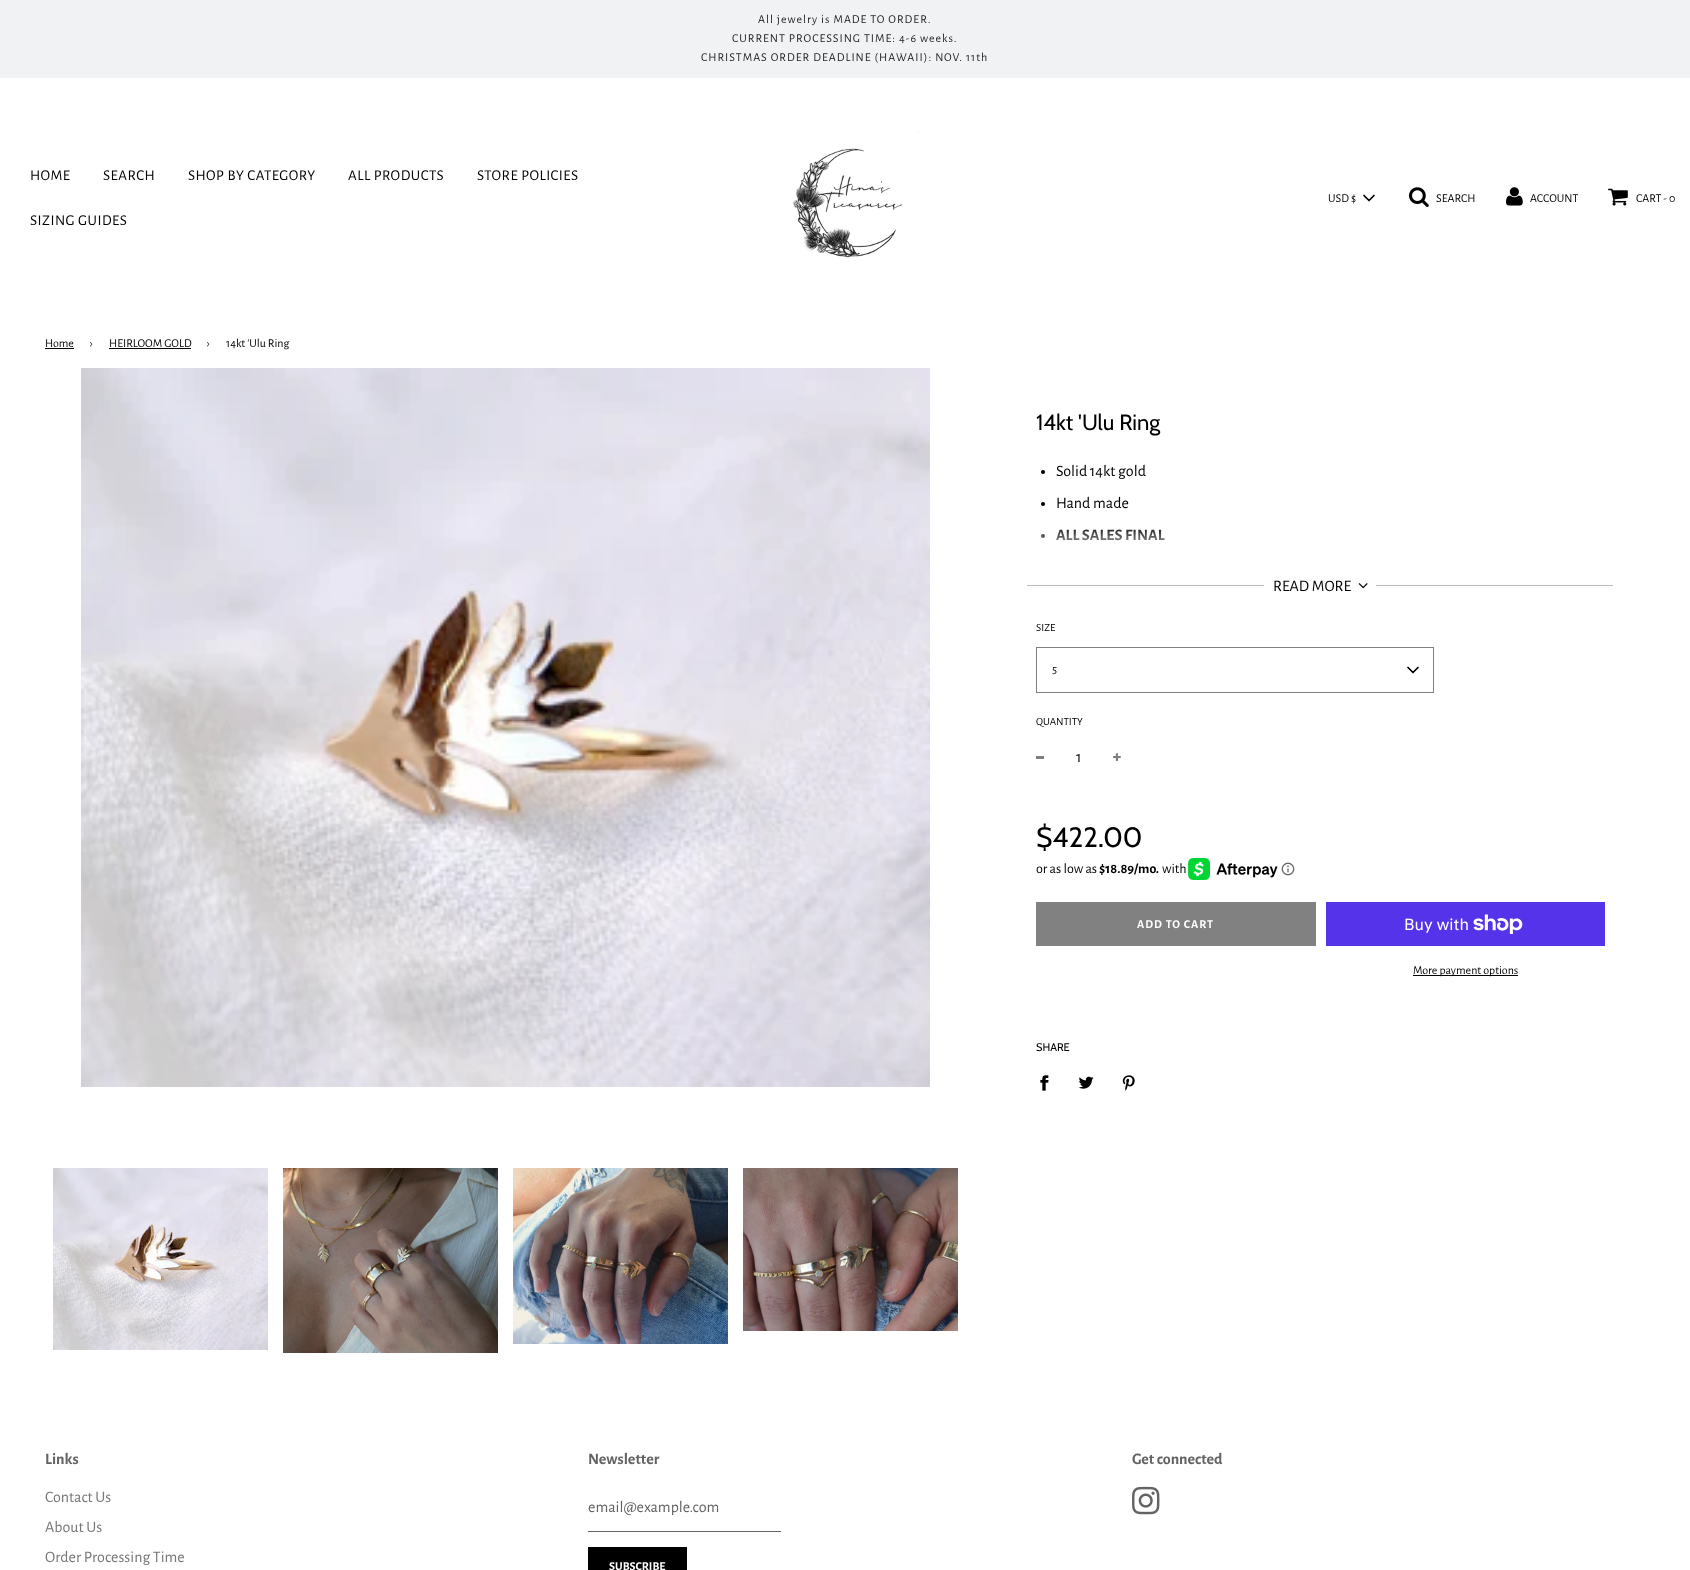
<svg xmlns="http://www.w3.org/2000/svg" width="1690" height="1570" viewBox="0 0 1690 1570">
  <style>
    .t1 { font: 12px Alegreya Sans; letter-spacing: 1px; fill: #242424; }
    .t2 { font: 15px Alegreya Sans; letter-spacing: 0.5px; fill: #000; }
    .t3 { font: 12px Alegreya Sans; fill: #000; }
    .t4 { font: 22px Cabin; fill: #000; }
    .t5 { font: 16px Alegreya Sans; fill: #000; }
    .t6 { font: bold 16px Alegreya Sans; fill: #000; }
    .t7 { font: 11px Alegreya Sans; fill: #000; }
    .t8 { font: 28px Cabin; fill: #000; }
    .t9 { font: 14px Alegreya Sans; fill: #000; }
    .t10 { font: bold 14px Alegreya Sans; fill: #000; }
    .t11 { font: bold 12px Alegreya Sans; letter-spacing: 1px; fill: #fff; }
    .t12 { font: 16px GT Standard; fill: #fff; }
    .t13 { font: 11px Cabin; fill: #000; }
    .t14 { font: bold 16px Alegreya Sans; fill: #636363; }
    .t15 { font: 16px Alegreya Sans; fill: #767676; }
    .t16 { font: 16px Alegreya Sans; fill: #636363; }
    .t17 { font: bold 12px Alegreya Sans; fill: #fff; }
  </style>
  <defs>
    <linearGradient id="g1" gradientUnits="userSpaceOnUse" x1="1321" y1="459" x2="1321" y2="559"><stop offset="0.65" stop-color="#fff" stop-opacity="0"/><stop offset="1" stop-color="#fff"/></linearGradient>
  </defs>
  <rect width="100%" height="100%" fill="#fff"/>
  <rect x="0" y="0" width="1690" height="78" fill="#f1f2f3"/>
  <text x="758" y="23" class="t1">All jewelry is MADE TO ORDER.</text>
  <text x="732" y="42" class="t1">CURRENT PROCESSING TIME: 4-6 weeks.</text>
  <text x="701" y="61" class="t1">CHRISTMAS ORDER DEADLINE (HAWAII): NOV. 11th</text>
  <text x="30" y="180" class="t2">HOME</text>
  <text x="103" y="180" class="t2">SEARCH</text>
  <text x="188" y="180" class="t2">SHOP BY CATEGORY</text>
  <text x="348" y="180" class="t2">ALL PRODUCTS</text>
  <text x="477" y="180" class="t2">STORE POLICIES</text>
  <text x="30" y="225" class="t2">SIZING GUIDES</text>
  <image x="793" y="131" width="126" height="127" href="images/1.png"/>
  <text x="1328" y="202" class="t3">USD $</text>
  <path d="M1364 195.5L1369 200.5L1374 195.5" fill="none" stroke="#000" stroke-width="1.7" stroke-linecap="round" stroke-linejoin="round"/>
  <image x="1409" y="187" width="20" height="20" href="images/2.png"/>
  <text x="1436" y="202" class="t3">SEARCH</text>
  <image x="1506" y="187" width="17" height="19" href="images/3.png"/>
  <text x="1530" y="202" class="t3">ACCOUNT</text>
  <image x="1608" y="188" width="20" height="18" href="images/4.png"/>
  <text x="1636" y="202" class="t3">CART - 0</text>
  <text x="45" y="347" class="t3">Home</text>
  <rect x="45" y="348" width="29" height="1" fill="#000"/>
  <text x="90" y="347" class="t3">›</text>
  <text x="109" y="347" class="t3">HEIRLOOM GOLD</text>
  <rect x="109" y="348" width="82" height="1" fill="#000"/>
  <text x="207" y="347" class="t3">›</text>
  <text x="226" y="347" class="t3">14kt 'Ulu Ring</text>
  <image x="81" y="368" width="849" height="719" href="images/5.png"/>
  <image x="53" y="1168" width="215" height="182" href="images/6.png"/>
  <image x="283" y="1168" width="215" height="185" href="images/7.png"/>
  <image x="513" y="1168" width="215" height="176" href="images/8.png"/>
  <image x="743" y="1168" width="215" height="163" href="images/9.png"/>
  <text x="1036" y="430" class="t4">14kt 'Ulu Ring</text>
  <circle cx="1043" cy="472" r="2" fill="#000"/>
  <text x="1056" y="476" class="t5">Solid 14kt gold</text>
  <circle cx="1043" cy="504" r="2" fill="#000"/>
  <text x="1056" y="508" class="t5">Hand made</text>
  <circle cx="1043" cy="536" r="2" fill="#000"/>
  <text x="1056" y="540" class="t6">ALL SALES FINAL</text>
  <rect x="1041" y="529" width="124" height="12" fill="url(#g1)"/>
  <rect x="1027" y="585" width="237" height="1" fill="#bcbcbc"/>
  <text x="1273" y="591" class="t5">READ MORE</text>
  <image x="1358" y="583" width="10" height="6" href="images/10.png"/>
  <rect x="1376" y="585" width="237" height="1" fill="#bcbcbc"/>
  <text x="1036" y="631" class="t7">SIZE</text>
  <rect x="1036.5" y="647.5" width="397" height="45" fill="none" stroke="#808080"/>
  <text x="1052" y="673" class="t3">5</text>
  <path d="M1408 667.5L1413 672.5L1418 667.5" fill="none" stroke="#000" stroke-width="1.7" stroke-linecap="round" stroke-linejoin="round"/>
  <text x="1036" y="725" class="t7">QUANTITY</text>
  <rect x="1036" y="756" width="8" height="3" fill="#808080"/>
  <text x="1076" y="762" class="t5">1</text>
  <image x="1113" y="753" width="8" height="8" href="images/11.png"/>
  <text x="1036" y="847" class="t8">$422.00</text>
  <text x="1036" y="873" class="t9">or as low as</text>
  <text x="1099" y="873" class="t10">$18.89/mo.</text>
  <text x="1162" y="873" class="t9">with</text>
  <image x="1188" y="858" width="90" height="22" href="images/12.png"/>
  <image x="1281" y="862" width="14" height="14" href="images/13.png"/>
  <rect x="1036" y="902" width="280" height="44" fill="#818181"/>
  <text x="1137" y="928" class="t11">ADD TO CART</text>
  <rect x="1326" y="902" width="279" height="44" fill="#5433eb"/>
  <text x="1404" y="930" class="t12">Buy with</text>
  <image x="1473" y="914" width="50" height="20" href="images/14.png"/>
  <rect x="1413" y="975" width="105" height="1" fill="#000"/>
  <text x="1413" y="974" class="t3">More payment options</text>
  <text x="1036" y="1051" class="t13">SHARE</text>
  <image x="1040" y="1075" width="9" height="16" href="images/15.png"/>
  <image x="1078" y="1076" width="16" height="13" href="images/16.png"/>
  <image x="1122" y="1075" width="13" height="16" href="images/17.png"/>
  <text x="45" y="1464" class="t14">Links</text>
  <text x="45" y="1502" class="t15">Contact Us</text>
  <text x="45" y="1532" class="t15">About Us</text>
  <text x="45" y="1562" class="t15">Order Processing Time</text>
  <text x="588" y="1464" class="t14">Newsletter</text>
  <rect x="588" y="1531" width="193" height="1" fill="#636363"/>
  <text x="588" y="1512" class="t16">email@example.com</text>
  <rect x="588" y="1547" width="99" height="23" fill="#000"/>
  <text x="609" y="1570" class="t17">SUBSCRIBE</text>
  <text x="1132" y="1464" class="t14">Get connected</text>
  <image x="1132" y="1486" width="28" height="29" href="images/18.png"/>
</svg>
